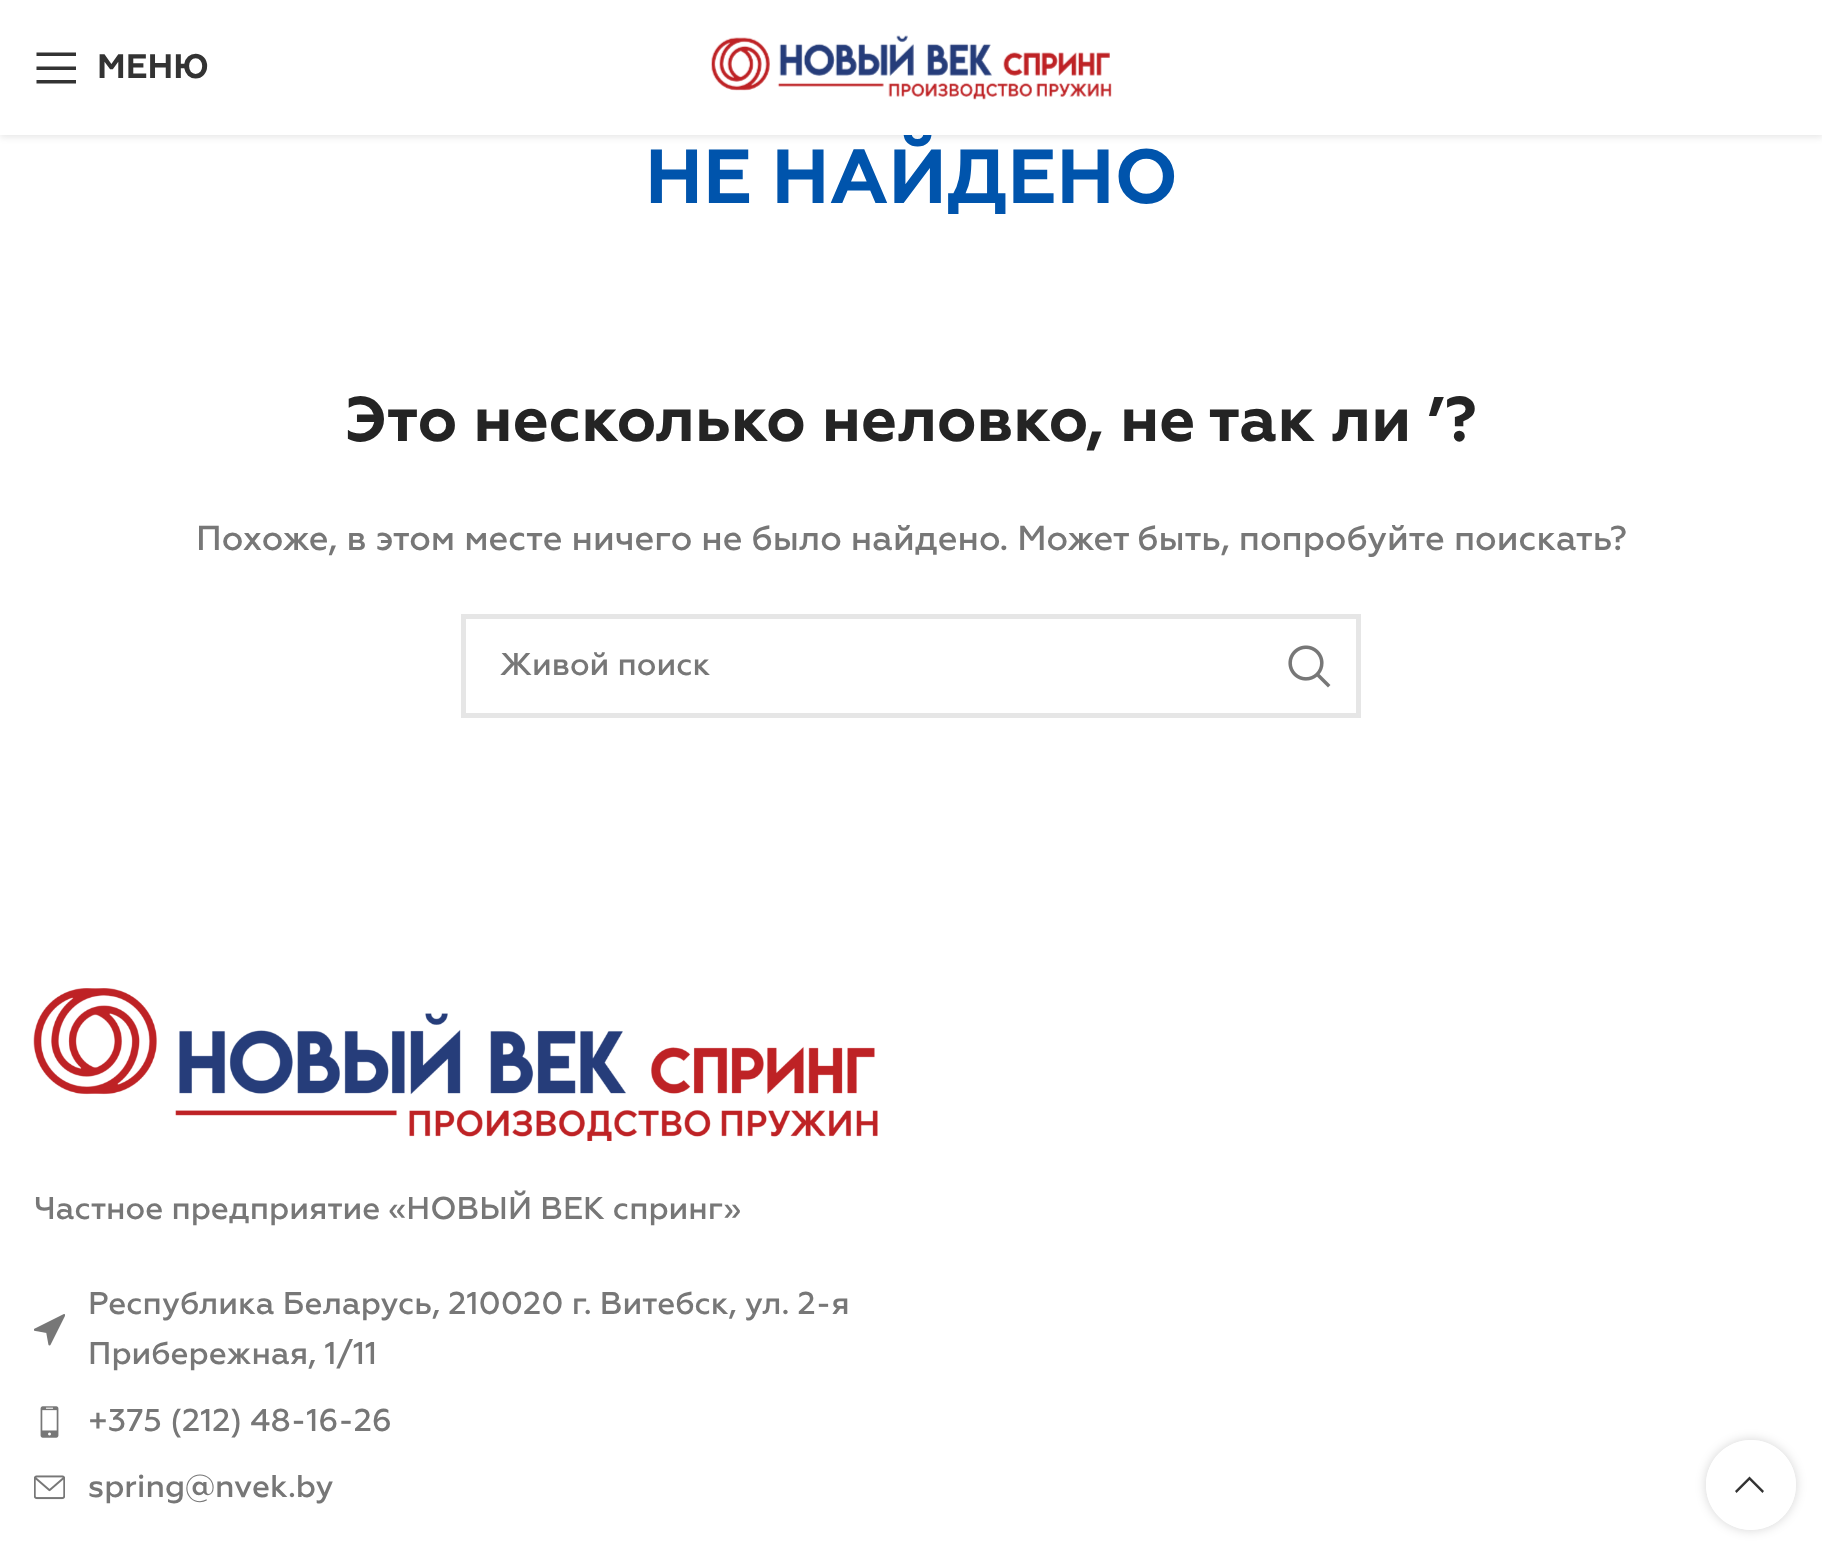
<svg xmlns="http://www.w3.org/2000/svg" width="1822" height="1555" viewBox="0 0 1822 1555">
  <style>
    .t1 { font: bold 76.5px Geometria; fill: #0054ac; }
    .t2 { font: bold 34px Geometria; fill: #333; }
    .t3 { font: bold 63px Geometria; fill: #242424; }
    .t4 { font: 500 34.65px Geometria; fill: #777; }
    .t5 { font: 500 31.5px Geometria; fill: #777; }
  </style>
  <defs>
    <clipPath id="clip1"><path d="M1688 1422H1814V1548H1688ZM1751 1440C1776 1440 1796 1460 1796 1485C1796 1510 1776 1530 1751 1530C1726 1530 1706 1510 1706 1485C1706 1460 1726 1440 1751 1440Z" clip-rule="evenodd"/></clipPath>
  </defs>
  <rect width="100%" height="100%" fill="#fff"/>
  <rect x="0" y="2" width="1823" height="135" fill="#0000001a" filter="blur(3.5px)"/>
  <text x="645" y="203" class="t1">НЕ НАЙДЕНО</text>
  <rect x="0" y="0" width="1822" height="135" fill="#fff"/>
  <path d="M36.5 56H76V52.5H36.5ZM36.5 70H76V66.5H36.5ZM36.5 83.5H76V80H36.5Z" fill="#333"/>
  <text x="97" y="78" class="t2">МЕНЮ</text>
  <image x="711" y="35" width="401" height="65" href="images/1.png"/>
  <text x="345" y="441" class="t3">Это несколько неловко, не так ли ’?</text>
  <text x="196" y="550" class="t4">Похоже, в этом месте ничего не было найдено. Может быть, попробуйте поискать?</text>
  <rect x="463.5" y="616.5" width="895" height="99" fill="none" stroke="#e6e6e6" stroke-width="5"/>
  <text x="500" y="675" class="t5">Живой поиск</text>
  <image x="1288" y="645" width="43" height="43" href="images/2.png"/>
  <image x="33" y="988" width="845" height="153" href="images/3.png"/>
  <text x="34" y="1219" class="t5">Частное предприятие «НОВЫЙ ВЕК спринг»</text>
  <image x="34" y="1314" width="31" height="32" href="images/4.png"/>
  <text x="88" y="1314" class="t5">Республика Беларусь, 210020 г. Витебск, ул. 2-я</text>
  <text x="88" y="1364" class="t5">Прибережная, 1/11</text>
  <image x="40" y="1406" width="19" height="32" href="images/5.png"/>
  <text x="88" y="1431" class="t5">+375 (212) 48-16-26</text>
  <image x="34" y="1475" width="31" height="25" href="images/6.png"/>
  <text x="88" y="1497" class="t5">spring@nvek.by</text>
  <g clip-path="url(#clip1)">
    <rect x="1706" y="1440" width="90" height="90" rx="45" fill="#0000002b" filter="blur(5.5px)"/>
  </g>
  <circle cx="1751" cy="1485" r="45" fill="#ffffffe6"/>
  <path d="M1762.5 1493L1764 1491L1749.5 1476.5L1735 1491L1736.5 1493L1749.5 1480Z" fill="#333"/>
</svg>
